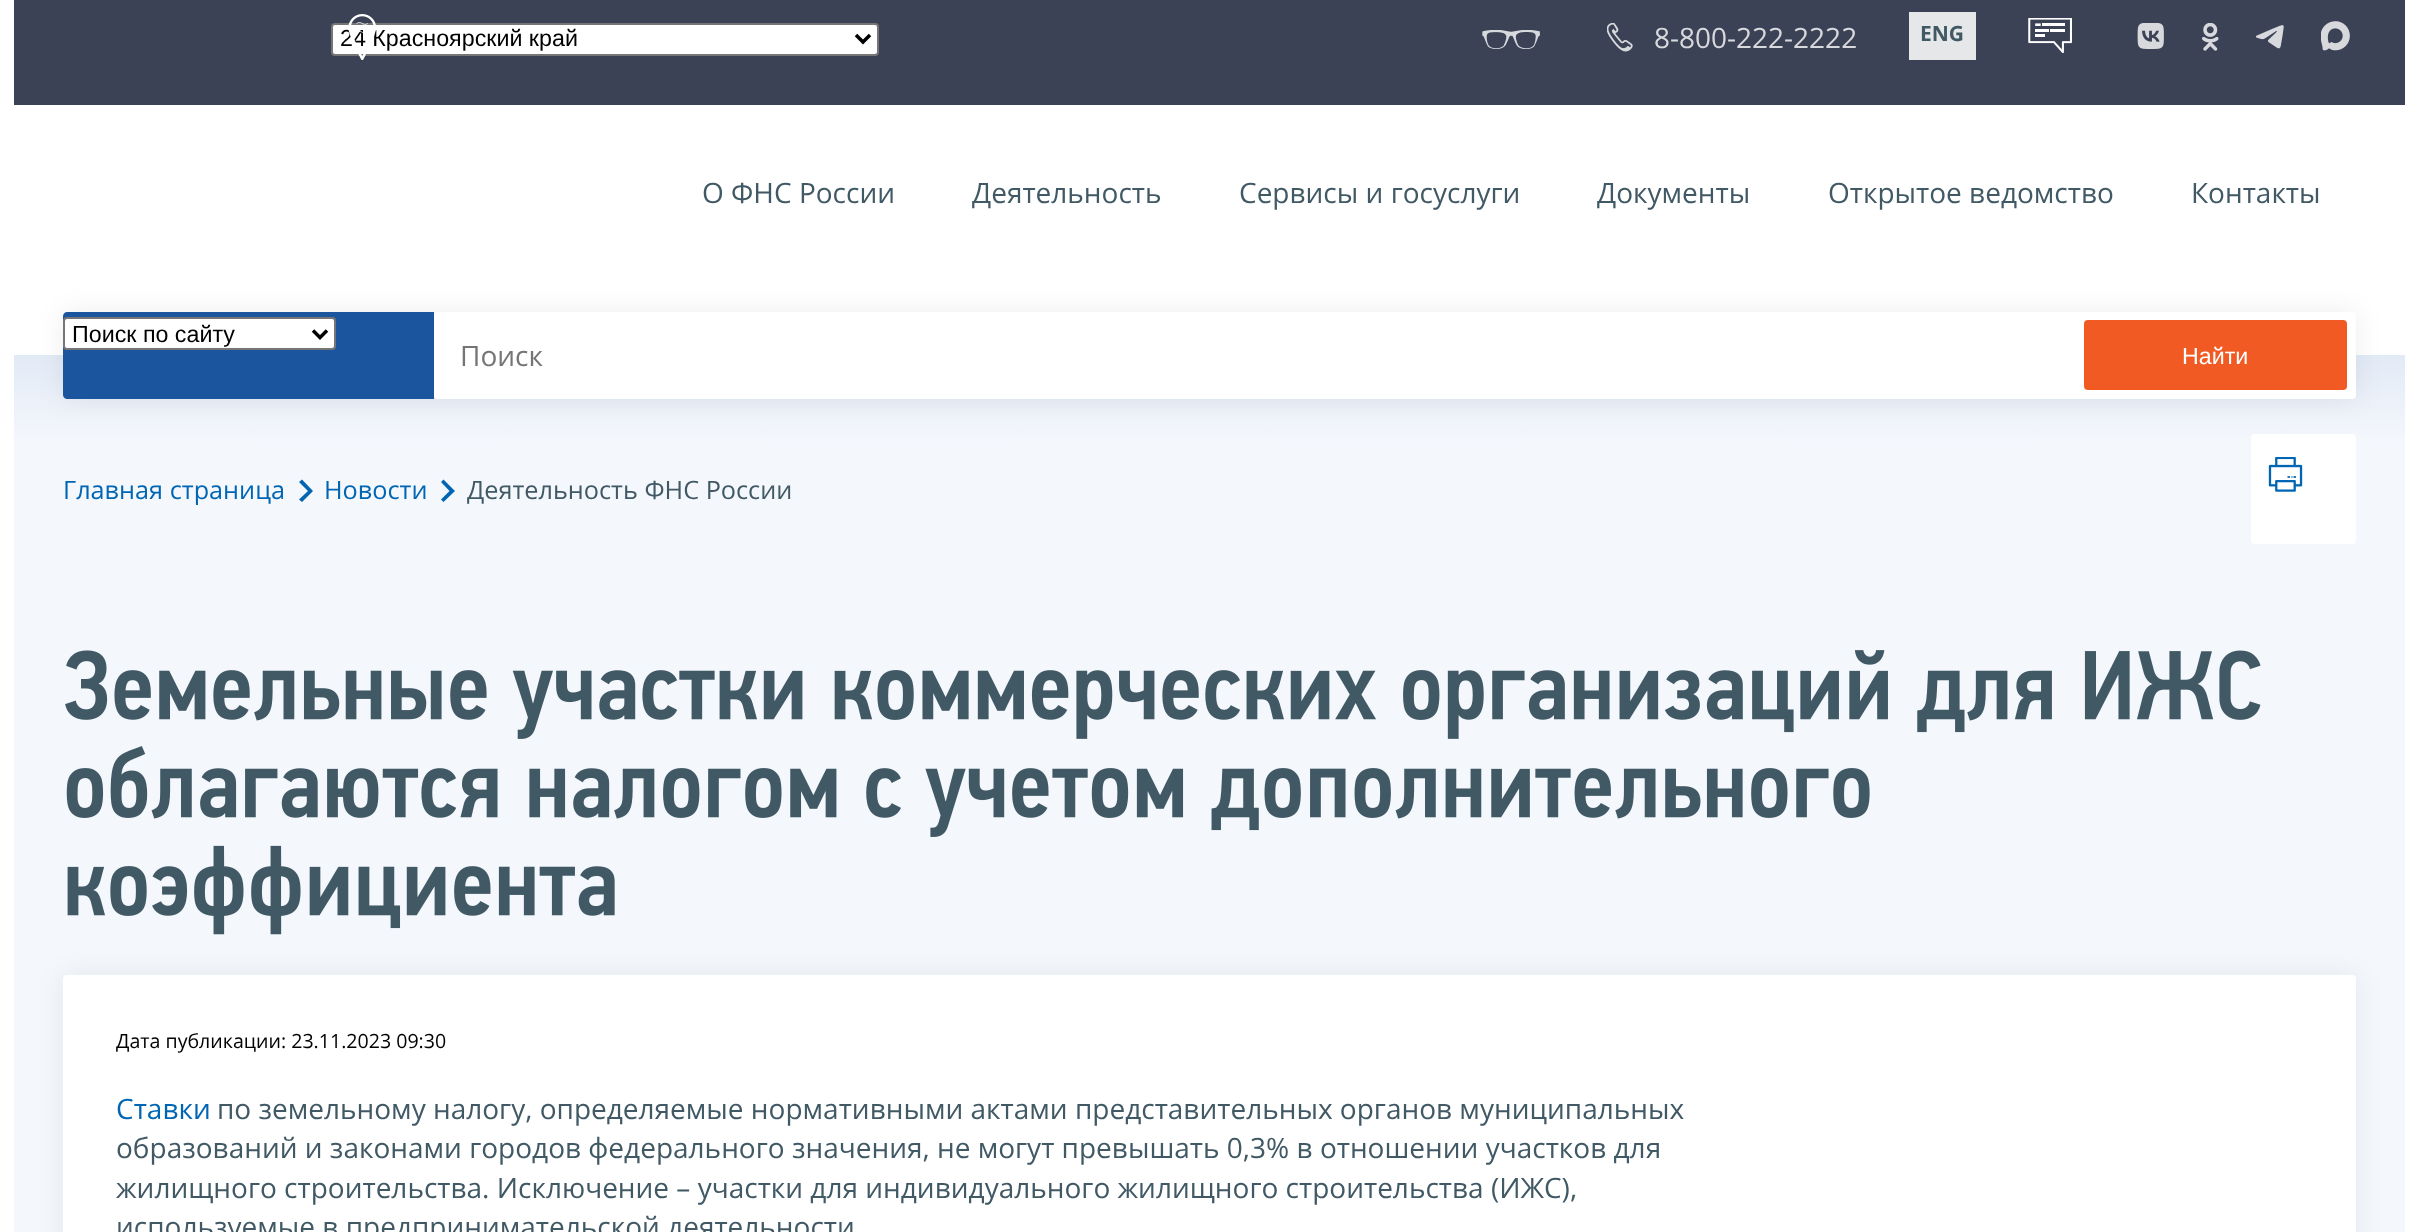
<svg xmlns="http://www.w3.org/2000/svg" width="2417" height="1232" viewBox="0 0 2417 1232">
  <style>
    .t1 { font: 23.25px Liberation Sans; fill: #000; }
    .t2 { font: 28px Open Sans; fill: #d8d9dd; }
    .t3 { font: bold 21px Open Sans; fill: #405965; }
    .t4 { font: 28px Open Sans; fill: #405965; }
    .t5 { font: 28px Open Sans; fill: #757575; }
    .t6 { font: 23.25px Liberation Sans; fill: #fff; }
    .t7 { font: 25.25px Open Sans; fill: #0066b3; }
    .t8 { font: 25.25px Open Sans; fill: #405965; }
    .t9 { font: 19.6px Open Sans; fill: #000; }
    .t10 { font: 28px Open Sans; fill: #0066b3; }
  </style>
  <defs>
    <linearGradient id="g1" gradientUnits="userSpaceOnUse" x1="1209" y1="355" x2="1209" y2="443"><stop offset="0" stop-color="#e2eaf6"/><stop offset="1" stop-color="#f4f7fc"/></linearGradient>
  </defs>
  <rect width="100%" height="100%" fill="#fff"/>
  <rect x="14" y="0" width="2391" height="105" fill="#3b4256"/>
  <rect x="332" y="24" width="546" height="31" rx="3" fill="#fff" stroke="#767676" stroke-width="2"/>
  <text x="340" y="46" class="t1">24 Красноярский край</text>
  <image x="348" y="14" width="28" height="46" href="images/1.png"/>
  <path d="M856 35L863 42L870 35" fill="none" stroke="#000" stroke-width="3.5"/>
  <image x="1482" y="30" width="58" height="19" href="images/2.png"/>
  <image x="1607" y="23" width="26" height="29" href="images/3.png"/>
  <text x="1654" y="48" class="t2">8-800-222-2222</text>
  <rect x="1909" y="12" width="67" height="48" fill="#e6e7e8"/>
  <text x="1920" y="41" class="t3">ENG</text>
  <image x="2028" y="18" width="44" height="35" href="images/4.png"/>
  <image x="2137" y="23" width="27" height="26" href="images/5.png"/>
  <image x="2202" y="23" width="17" height="28" href="images/6.png"/>
  <image x="2256" y="25" width="28" height="24" href="images/7.png"/>
  <image x="2321" y="21" width="29" height="30" href="images/8.png"/>
  <text x="702" y="203" class="t4">О ФНС России</text>
  <text x="972" y="203" class="t4">Деятельность</text>
  <text x="1239" y="203" class="t4">Сервисы и госуслуги</text>
  <text x="1597" y="203" class="t4">Документы</text>
  <text x="1828" y="203" class="t4">Открытое ведомство</text>
  <text x="2191" y="203" class="t4">Контакты</text>
  <rect x="14" y="355" width="2391" height="88" fill="url(#g1)"/>
  <rect x="14" y="443" width="2391" height="789" fill="#f4f7fc"/>
  <rect x="2251" y="434" width="105" height="110" rx="4" fill="#fff"/>
  <rect x="63" y="312" width="2293" height="87" rx="4" fill="#00000012" filter="blur(13px)"/>
  <path d="M67 312H434V399H67C65 399 63 397 63 395V316C63 314 65 312 67 312Z" fill="#1b559e"/>
  <rect x="64" y="318" width="271" height="31" rx="3" fill="#fff" stroke="#767676" stroke-width="2"/>
  <path d="M313 330.5L320 337.5L327 330.5" fill="none" stroke="#000" stroke-width="3.5"/>
  <text x="72" y="342" class="t1">Поиск по сайту</text>
  <rect x="434" y="312" width="1922" height="87" rx="4" fill="#fff"/>
  <text x="460" y="366" class="t5">Поиск</text>
  <rect x="2084" y="320" width="263" height="70" rx="4" fill="#f15a22"/>
  <text x="2182" y="364" class="t6">Найти</text>
  <text x="63" y="499" class="t7">Главная страница</text>
  <path d="M308 491L299 499.5L302 502L313 491L302 479.5L299 482Z" fill="#0066b3"/>
  <text x="324" y="499" class="t7">Новости</text>
  <path d="M449.5 491L441 499.5L443.5 502L455 491L443.5 479.5L441 482Z" fill="#0066b3"/>
  <text x="467" y="499" class="t8">Деятельность ФНС России</text>
  <image x="2268" y="457" width="35" height="35" href="images/9.png"/>
  <image x="65" y="650" width="2196" height="89" href="images/10.png"/>
  <image x="66" y="746" width="1804" height="91" href="images/11.png"/>
  <image x="67" y="845" width="548" height="90" href="images/12.png"/>
  <rect x="63" y="975" width="2293" height="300" rx="4" fill="#00000012" filter="blur(13px)"/>
  <rect x="63" y="975" width="2293" height="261" rx="4" fill="#fff"/>
  <text x="116" y="1048" class="t9">Дата публикации: 23.11.2023 09:30</text>
  <text x="116" y="1119" class="t10">Ставки</text>
  <text x="217" y="1119" class="t4">по земельному налогу, определяемые нормативными актами представительных органов муниципальных</text>
  <text x="116" y="1158" class="t4">образований и законами городов федерального значения, не могут превышать 0,3% в отношении участков для</text>
  <text x="116" y="1198" class="t4">жилищного строительства. Исключение – участки для индивидуального жилищного строительства (ИЖС),</text>
  <text x="116" y="1237" class="t4">используемые в предпринимательской деятельности</text>
</svg>
